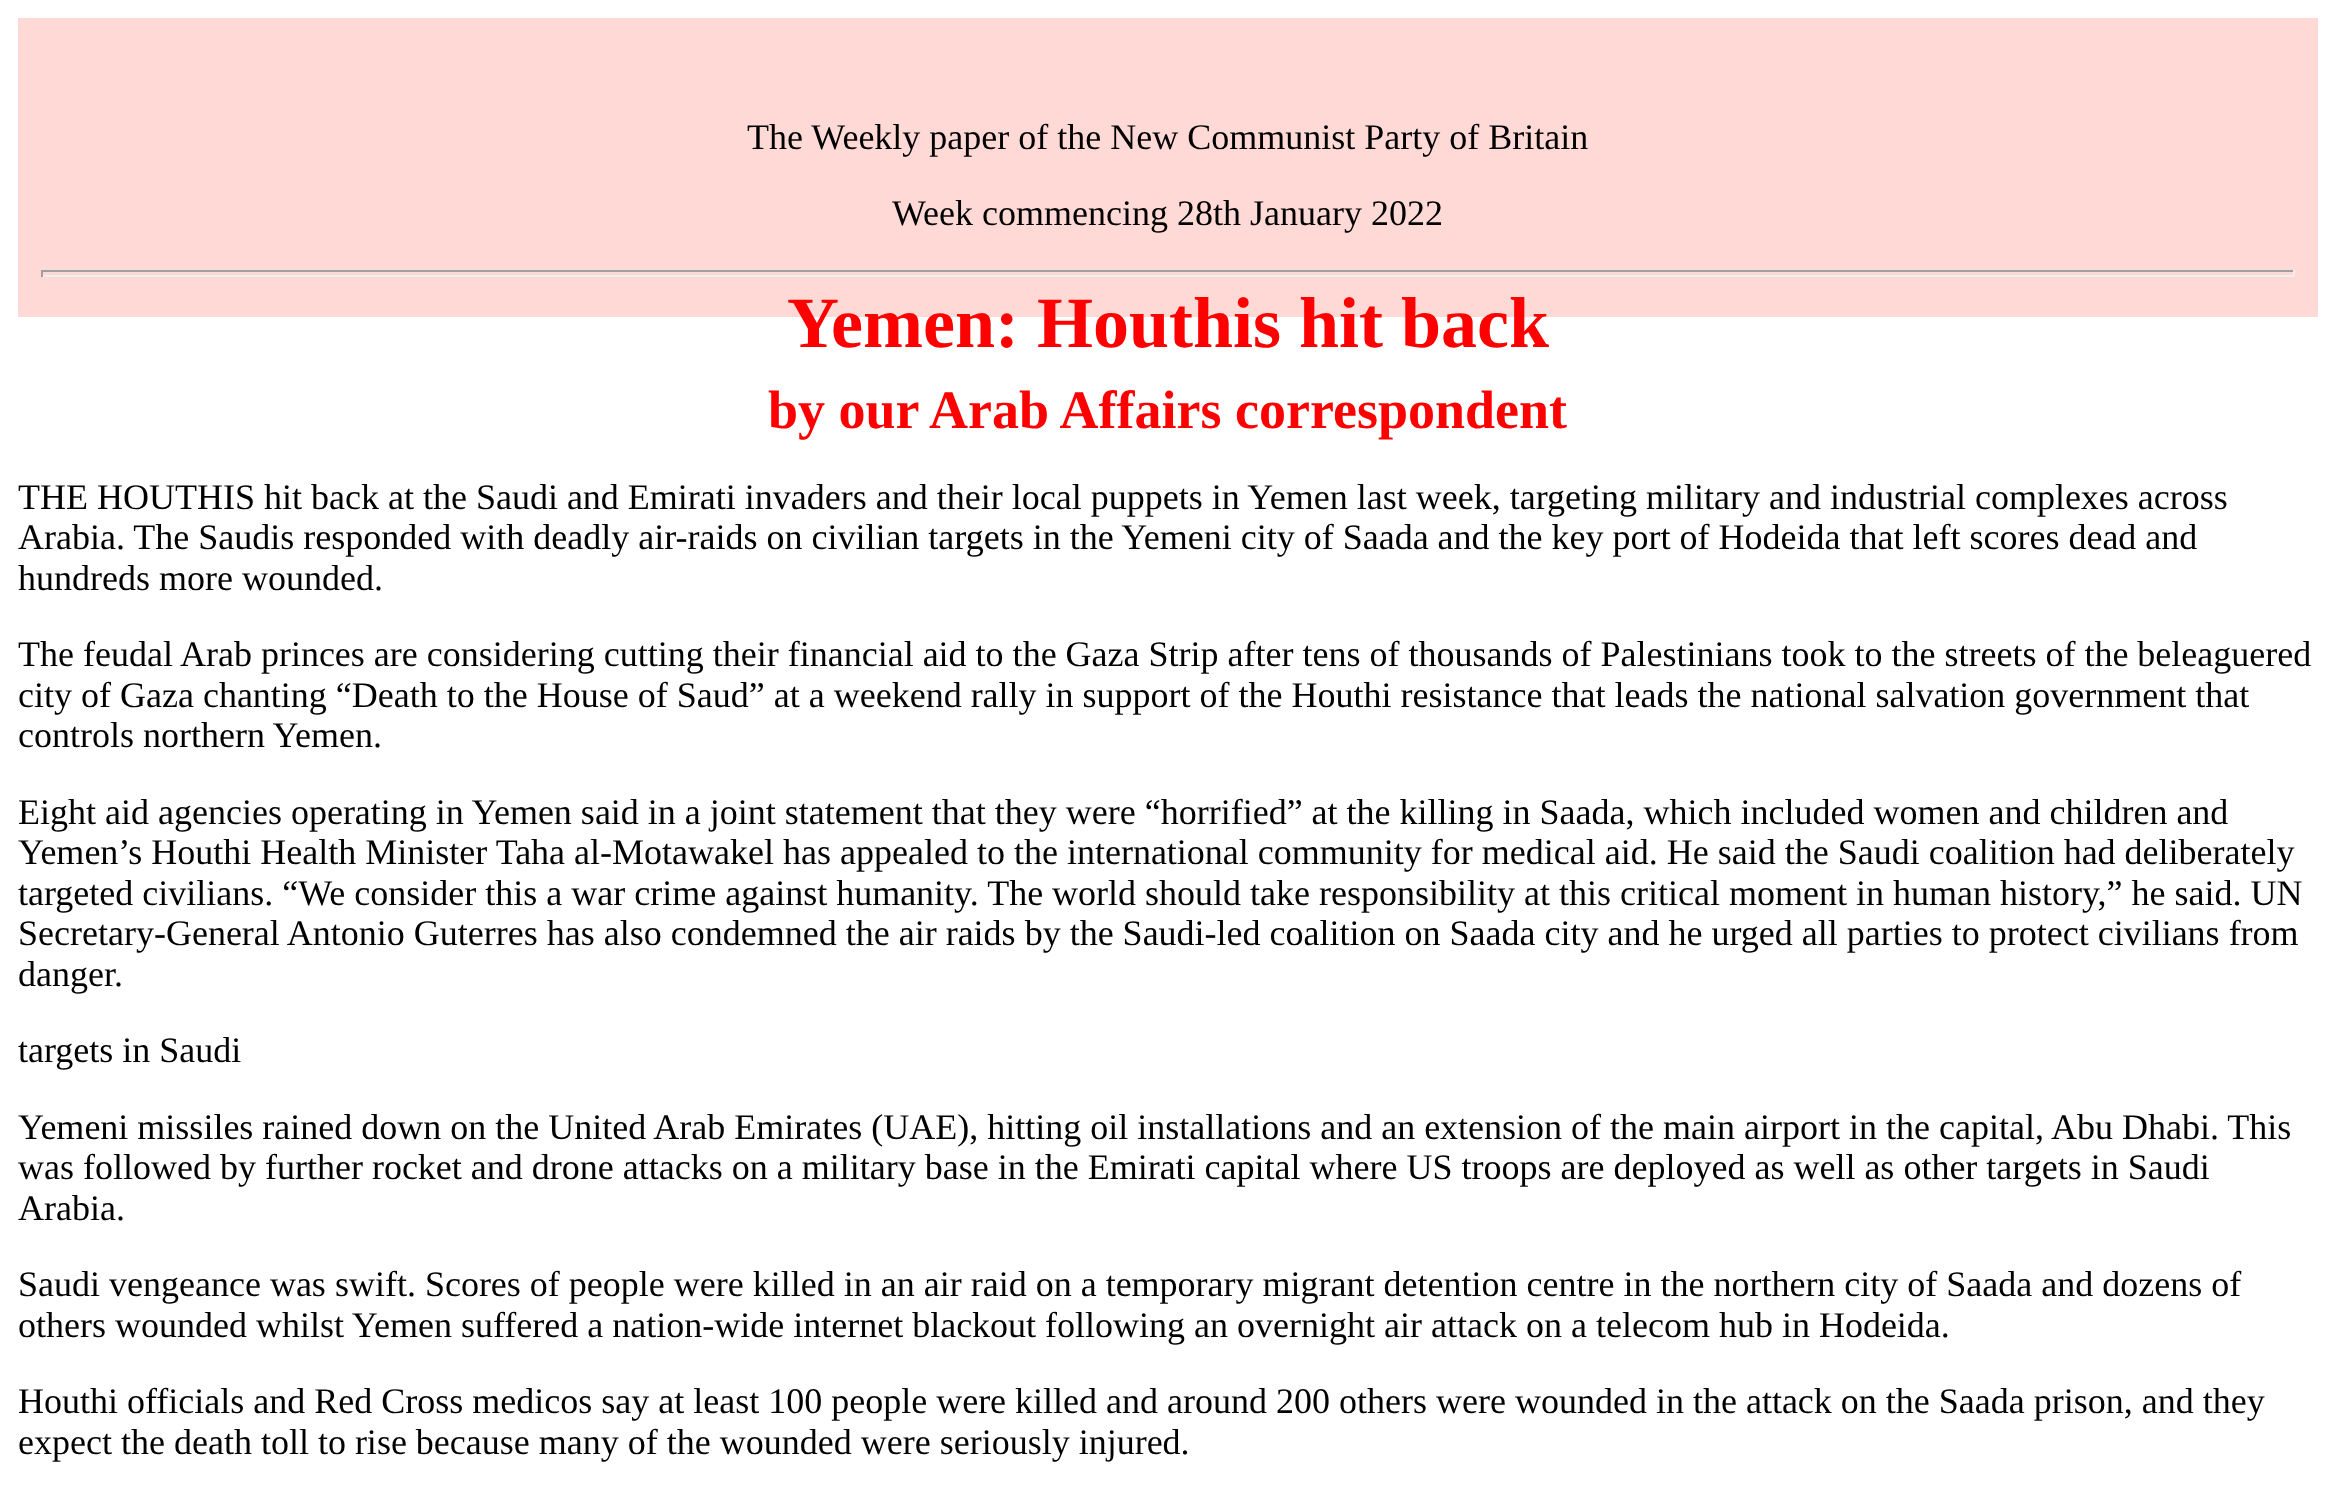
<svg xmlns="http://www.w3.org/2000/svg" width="2334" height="1512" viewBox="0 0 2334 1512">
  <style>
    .t1 { font: 36px Liberation Serif; fill: #000; }
    .t2 { font: bold 72px Liberation Serif; fill: #f00; }
    .t3 { font: bold 54px Liberation Serif; fill: #f00; }
  </style>
  <rect width="100%" height="100%" fill="#fff"/>
  <rect x="18" y="18" width="2300" height="299" fill="#ffd9d6"/>
  <text x="747" y="149" class="t1">The Weekly paper of the New Communist Party of Britain</text>
  <text x="892" y="225" class="t1">Week commencing 28th January 2022</text>
  <rect x="41" y="270" width="2254" height="2" fill="#9f9f9f"/>
  <rect x="2293" y="270" width="2" height="7" fill="#eee"/>
  <rect x="41" y="275" width="2254" height="2" fill="#eee"/>
  <rect x="41" y="270" width="2" height="7" fill="#9f9f9f"/>
  <text x="787" y="347" class="t2">Yemen: Houthis hit back</text>
  <text x="768" y="428" class="t3">by our Arab Affairs correspondent</text>
  <text x="18" y="509" class="t1">THE HOUTHIS hit back at the Saudi and Emirati invaders and their local puppets in Yemen last week, targeting military and industrial complexes across</text>
  <text x="18" y="549" class="t1">Arabia. The Saudis responded with deadly air-raids on civilian targets in the Yemeni city of Saada and the key port of Hodeida that left scores dead and</text>
  <text x="18" y="590" class="t1">hundreds more wounded.</text>
  <text x="18" y="666" class="t1">The feudal Arab princes are considering cutting their financial aid to the Gaza Strip after tens of thousands of Palestinians took to the streets of the beleaguered</text>
  <text x="18" y="707" class="t1">city of Gaza chanting “Death to the House of Saud” at a weekend rally in support of the Houthi resistance that leads the national salvation government that</text>
  <text x="18" y="747" class="t1">controls northern Yemen.</text>
  <text x="18" y="824" class="t1">Eight aid agencies operating in Yemen said in a joint statement that they were “horrified” at the killing in Saada, which included women and children and</text>
  <text x="18" y="864" class="t1">Yemen’s Houthi Health Minister Taha al-Motawakel has appealed to the international community for medical aid. He said the Saudi coalition had deliberately</text>
  <text x="18" y="905" class="t1">targeted civilians. “We consider this a war crime against humanity. The world should take responsibility at this critical moment in human history,” he said. UN</text>
  <text x="18" y="945" class="t1">Secretary-General Antonio Guterres has also condemned the air raids by the Saudi-led coalition on Saada city and he urged all parties to protect civilians from</text>
  <text x="18" y="986" class="t1">danger.</text>
  <text x="18" y="1062" class="t1">targets in Saudi</text>
  <text x="18" y="1139" class="t1">Yemeni missiles rained down on the United Arab Emirates (UAE), hitting oil installations and an extension of the main airport in the capital, Abu Dhabi. This</text>
  <text x="18" y="1179" class="t1">was followed by further rocket and drone attacks on a military base in the Emirati capital where US troops are deployed as well as other targets in Saudi</text>
  <text x="18" y="1220" class="t1">Arabia.</text>
  <text x="18" y="1296" class="t1">Saudi vengeance was swift. Scores of people were killed in an air raid on a temporary migrant detention centre in the northern city of Saada and dozens of</text>
  <text x="18" y="1337" class="t1">others wounded whilst Yemen suffered a nation-wide internet blackout following an overnight air attack on a telecom hub in Hodeida.</text>
  <text x="18" y="1413" class="t1">Houthi officials and Red Cross medicos say at least 100 people were killed and around 200 others were wounded in the attack on the Saada prison, and they</text>
  <text x="18" y="1454" class="t1">expect the death toll to rise because many of the wounded were seriously injured.</text>
</svg>
